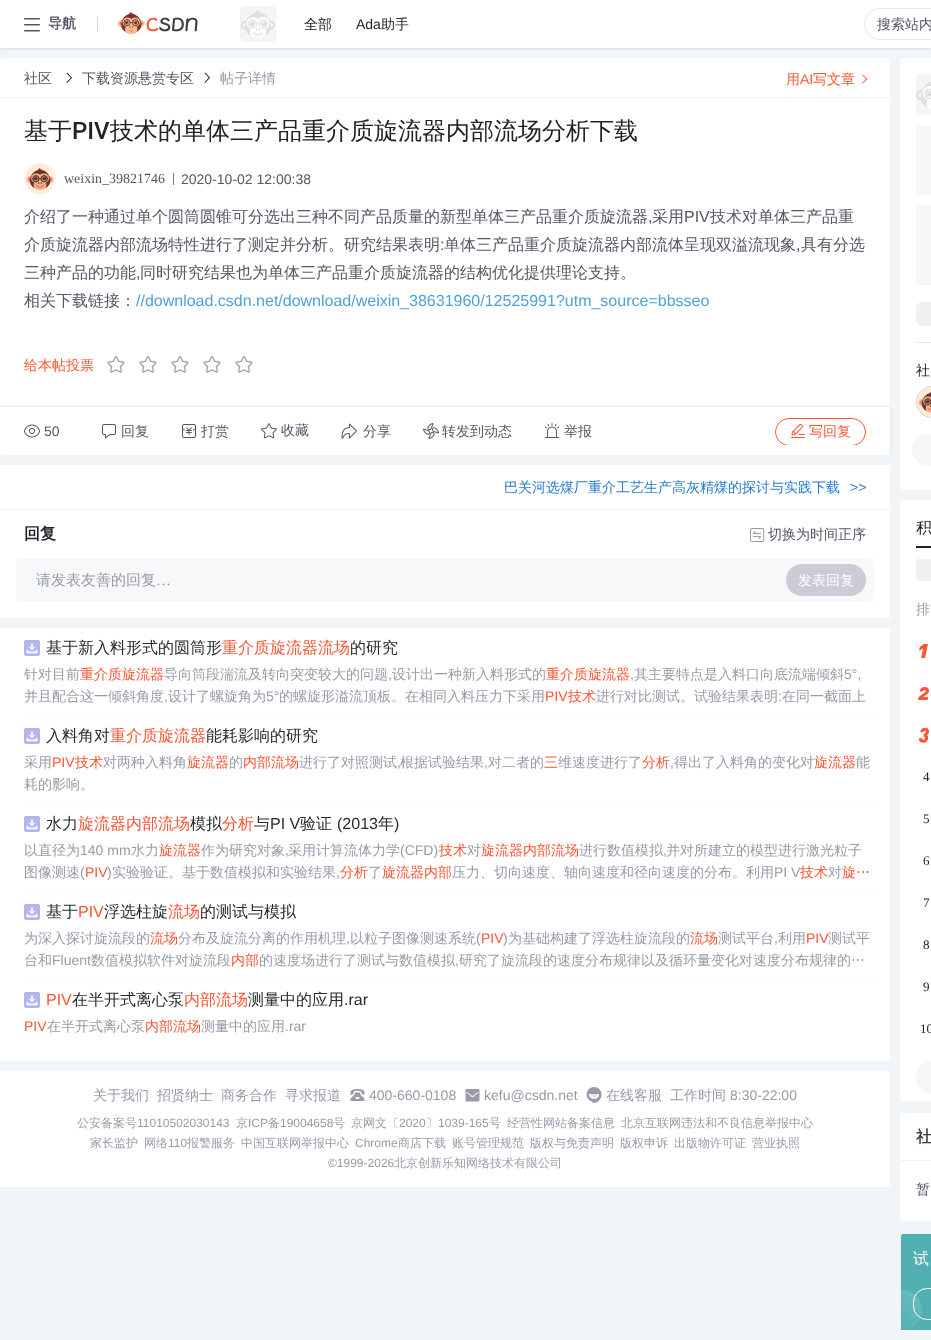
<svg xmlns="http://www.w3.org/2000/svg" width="931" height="1340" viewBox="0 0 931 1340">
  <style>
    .t1 { font: bold 14px WenQuanYi Zen Hei; fill: #555666; }
    .t2 { font: 500 14px WenQuanYi Zen Hei; fill: #222226; }
    .t3 { font: 14px Liberation Sans; fill: #222226; }
    .t4 { font: 500 14px WenQuanYi Zen Hei; fill: #555666; }
    .t5 { font: 500 14px WenQuanYi Zen Hei; fill: #999aaa; }
    .t6 { font: 500 14px WenQuanYi Zen Hei; fill: #fc5533; }
    .t7 { font: 14px Liberation Sans; fill: #fc5533; }
    .t8 { font: 500 24px WenQuanYi Zen Hei; fill: #222226; }
    .t9 { font: 500 24px Roboto; fill: #222226; }
    .t10 { font: 14px Liberation Serif; fill: #555666; }
    .t11 { font: 14px Liberation Sans; fill: #555666; }
    .t12 { font: 500 16px WenQuanYi Zen Hei; fill: #555666; }
    .t13 { font: 16px Liberation Sans; fill: #555666; }
    .t14 { font: 16px Liberation Sans; fill: #4ea1db; }
    .t15 { font: 500 14px WenQuanYi Zen Hei; fill: #277ccc; }
    .t16 { font: 14px Liberation Sans; fill: #277ccc; }
    .t17 { font: bold 16px WenQuanYi Zen Hei; fill: #20232c; }
    .t18 { font: 500 15px WenQuanYi Zen Hei; fill: #999aaa; }
    .t19 { font: 15px Liberation Serif; fill: #999aaa; }
    .t20 { font: 500 14px WenQuanYi Zen Hei; fill: #fff; }
    .t21 { font: 500 16px WenQuanYi Zen Hei; fill: #282b31; }
    .t22 { font: 500 16px WenQuanYi Zen Hei; fill: #fc5533; }
    .t23 { font: 14px Liberation Sans; fill: #999aaa; }
    .t24 { font: 16px Liberation Sans; fill: #282b31; }
    .t25 { font: 16px Liberation Sans; fill: #fc5533; }
    .t26 { font: 500 12px WenQuanYi Zen Hei; fill: #999aaa; }
    .t27 { font: 12px Liberation Sans; fill: #999aaa; }
    .t28 { font: 500 16px WenQuanYi Zen Hei; fill: #222226; }
    .t29 { font: 13px Liberation Serif; fill: #222226; }
    .t30 { font: bold 16px WenQuanYi Zen Hei; fill: #404040; }
    .t31 { font: 500 16px WenQuanYi Zen Hei; fill: #fff; }
  </style>
  <defs>
    <clipPath id="clip1"><rect x="865" y="9" width="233" height="30" rx="15"/></clipPath>
    <clipPath id="clip2"><rect x="0" y="417" width="890" height="28"/></clipPath>
    <clipPath id="clip3"><rect x="900" y="58" width="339" height="1272"/></clipPath>
  </defs>
  <rect width="100%" height="100%" fill="#f2f5f7"/>
  <rect x="0" y="1" width="931" height="48" fill="#0000001a" filter="blur(1px)"/>
  <rect x="0" y="0" width="931" height="48" fill="#fff"/>
  <image x="24" y="18" width="16" height="14" href="images/1.png"/>
  <text x="48" y="28" class="t1">导航</text>
  <rect x="97" y="16" width="1" height="16" rx="0.5" fill="#d8d8d8"/>
  <image x="118" y="12" width="80" height="22" href="images/2.png"/>
  <rect x="240.5" y="6.5" width="35" height="35" rx="3.5" fill="none" stroke="#f2f2f2"/>
  <image x="241" y="7" width="34" height="34" href="images/3.png"/>
  <text x="304" y="29" class="t2">全部</text>
  <text x="356" y="29" class="t3">Ada</text>
  <text x="381" y="29" class="t2">助手</text>
  <rect x="864.5" y="8.5" width="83" height="31" rx="15.5" fill="none" stroke="#e8e8ed"/>
  <g clip-path="url(#clip1)">
    <rect x="877" y="9" width="54" height="30" fill="#fff"/>
  </g>
  <text x="877" y="29" class="t4">搜索站内</text>
  <path d="M2 58H888C889 58 890 59 890 60V98H0V60C0 59 1 58 2 58Z" fill="#fff"/>
  <rect x="0" y="97" width="890" height="1" fill="#f2f2f2"/>
  <text x="24" y="83" class="t4">社区</text>
  <image x="66" y="72" width="6" height="11" href="images/4.png"/>
  <text x="82" y="83" class="t4">下载资源悬赏专区</text>
  <image x="204" y="72" width="6" height="11" href="images/4.png"/>
  <text x="220" y="83" class="t5">帖子详情</text>
  <text x="786" y="84" class="t6">用</text>
  <text x="800" y="84" class="t7">AI</text>
  <text x="813" y="84" class="t6">写文章</text>
  <path d="M862 75L862.5 74.5L867.5 79L866.5 79.5Z" fill="#fc5531"/>
  <path d="M862 83L866.5 78.5L867.5 79L862.5 83.5Z" fill="#fc5531"/>
  <rect x="0" y="98" width="890" height="309" fill="#fff"/>
  <text x="24" y="139" class="t8">基于</text>
  <text x="72" y="139" class="t9">PIV</text>
  <text x="110" y="139" class="t8">技术的单体三产品重介质旋流器内部流场分析下载</text>
  <circle cx="40" cy="179" r="15.5" fill="none" stroke="#f2f2f2"/>
  <image x="25" y="164" width="30" height="30" href="images/5.png"/>
  <text x="64" y="183" class="t10">weixin_39821746</text>
  <rect x="173" y="173" width="1" height="12" fill="#777888"/>
  <text x="181" y="184" class="t11">2020-10-02 12:00:38</text>
  <text x="24" y="222" class="t12">介绍了一种通过单个圆筒圆锥可分选出三种不同产品质量的新型单体三产品重介质旋流器</text>
  <text x="652" y="222" class="t12">采用</text>
  <text x="684" y="222" class="t13">PIV</text>
  <text x="710" y="222" class="t12">技术对单体三产品重</text>
  <text x="648" y="222" class="t13">,</text>
  <text x="24" y="250" class="t12">介质旋流器内部流场特性进行了测定并分析。研究结果表明</text>
  <text x="440" y="250" class="t13">:</text>
  <text x="444" y="250" class="t12">单体三产品重介质旋流器内部流体呈现双溢流现象</text>
  <text x="801" y="250" class="t12">具有分选</text>
  <text x="796" y="250" class="t13">,</text>
  <text x="24" y="278" class="t12">三种产品的功能</text>
  <text x="136" y="278" class="t13">,</text>
  <text x="140" y="278" class="t12">同时研究结果也为单体三产品重介质旋流器的结构优化提供理论支持。</text>
  <text x="24" y="306" class="t12">相关下载链接：</text>
  <text x="136" y="306" class="t14">//download.csdn.net/download/weixin_38631960/12525991?utm_source=bbsseo</text>
  <text x="24" y="370" class="t6">给本帖投票</text>
  <image x="107" y="356" width="18" height="17" href="images/6.png"/>
  <image x="139" y="356" width="18" height="17" href="images/6.png"/>
  <image x="171" y="356" width="18" height="17" href="images/6.png"/>
  <image x="203" y="356" width="18" height="17" href="images/6.png"/>
  <image x="235" y="356" width="18" height="17" href="images/6.png"/>
  <rect x="0" y="406" width="890" height="48" fill="#1212121a" filter="blur(1.5px)"/>
  <rect x="0" y="407" width="890" height="48" fill="#fff"/>
  <image x="24" y="424" width="16" height="14" href="images/7.png"/>
  <text x="44" y="436" class="t11">50</text>
  <image x="102" y="424" width="14" height="15" href="images/8.png"/>
  <text x="121" y="436" class="t4">回复</text>
  <image x="182" y="424" width="14" height="14" href="images/9.png"/>
  <text x="201" y="436" class="t4">打赏</text>
  <image x="261" y="423" width="16" height="16" href="images/10.png"/>
  <text x="281" y="435" class="t4">收藏</text>
  <image x="341" y="423" width="16" height="16" href="images/11.png"/>
  <text x="363" y="436" class="t4">分享</text>
  <image x="423" y="423" width="16" height="16" href="images/12.png"/>
  <text x="442" y="436" class="t4">转发到动态</text>
  <image x="544" y="423" width="16" height="15" href="images/13.png"/>
  <text x="564" y="436" class="t4">举报</text>
  <g clip-path="url(#clip2)">
    <rect x="775.5" y="418.5" width="90" height="27" rx="13.5" fill="none" stroke="#fc5531"/>
  </g>
  <image x="791" y="423" width="14" height="15" href="images/14.png"/>
  <text x="809" y="436" class="t6">写回复</text>
  <rect x="0" y="465" width="890" height="44" fill="#fff"/>
  <text x="504" y="492" class="t15">巴关河选煤厂重介工艺生产高灰精煤的探讨与实践下载</text>
  <text x="850" y="492" class="t16">&gt;&gt;</text>
  <rect x="0" y="510" width="890" height="108" fill="#fff"/>
  <text x="24" y="539" class="t17">回复</text>
  <image x="750" y="528" width="15" height="14" href="images/15.png"/>
  <text x="768" y="539" class="t4">切换为时间正序</text>
  <rect x="16" y="558" width="858" height="44" rx="4" fill="#f7f8f9"/>
  <text x="36" y="585" class="t18">请发表友善的回复</text>
  <text x="156" y="585" class="t19">…</text>
  <rect x="786" y="564" width="80" height="32" rx="16" fill="#ccccd7"/>
  <text x="798" y="585" class="t20">发表回复</text>
  <rect x="0" y="628" width="890" height="433" fill="#fff"/>
  <rect x="24" y="715" width="850" height="1" fill="#f7f7fc"/>
  <image x="24" y="640" width="16" height="16" href="images/16.png"/>
  <text x="46" y="653" class="t21">基于新入料形式的圆筒形</text>
  <text x="222" y="653" class="t22">重介质旋流器流场</text>
  <text x="350" y="653" class="t21">的研究</text>
  <text x="24" y="679" class="t5">针对目前</text>
  <text x="80" y="679" class="t6">重介质旋流器</text>
  <text x="164" y="679" class="t5">导向筒段湍流及转向突变较大的问题</text>
  <text x="388" y="679" class="t23">,</text>
  <text x="392" y="679" class="t5">设计出一种新入料形式的</text>
  <text x="546" y="679" class="t6">重介质旋流器</text>
  <text x="630" y="679" class="t23">,</text>
  <text x="634" y="679" class="t5">其主要特点是入料口向底流端倾斜</text>
  <text x="844" y="679" class="t23">5°,</text>
  <text x="24" y="701" class="t5">并且配合这一倾斜角度</text>
  <text x="164" y="701" class="t23">,</text>
  <text x="168" y="701" class="t5">设计了螺旋角为</text>
  <text x="266" y="701" class="t23">5°</text>
  <text x="279" y="701" class="t5">的螺旋形溢流顶板。在相同入料压力下采用</text>
  <text x="545" y="701" class="t7">PIV</text>
  <text x="568" y="701" class="t6">技术</text>
  <text x="596" y="701" class="t5">进行对比测试。试验结果表明</text>
  <text x="778" y="701" class="t23">:</text>
  <text x="782" y="701" class="t5">在同一截面上</text>
  <rect x="24" y="803" width="850" height="1" fill="#f7f7fc"/>
  <image x="24" y="728" width="16" height="16" href="images/16.png"/>
  <text x="46" y="741" class="t21">入料角对</text>
  <text x="110" y="741" class="t22">重介质旋流器</text>
  <text x="206" y="741" class="t21">能耗影响的研究</text>
  <text x="24" y="767" class="t5">采用</text>
  <text x="52" y="767" class="t7">PIV</text>
  <text x="75" y="767" class="t6">技术</text>
  <text x="103" y="767" class="t5">对两种入料角</text>
  <text x="187" y="767" class="t6">旋流器</text>
  <text x="229" y="767" class="t5">的</text>
  <text x="243" y="767" class="t6">内部流场</text>
  <text x="299" y="767" class="t5">进行了对照测试</text>
  <text x="397" y="767" class="t23">,</text>
  <text x="400" y="767" class="t5">根据试验结果</text>
  <text x="484" y="767" class="t23">,</text>
  <text x="488" y="767" class="t5">对二者的</text>
  <text x="544" y="767" class="t6">三</text>
  <text x="558" y="767" class="t5">维速度进行了</text>
  <text x="642" y="767" class="t6">分析</text>
  <text x="670" y="767" class="t23">,</text>
  <text x="674" y="767" class="t5">得出了入料角的变化对</text>
  <text x="814" y="767" class="t6">旋流器</text>
  <text x="856" y="767" class="t5">能</text>
  <text x="24" y="789" class="t5">耗的影响。</text>
  <rect x="24" y="891" width="850" height="1" fill="#f7f7fc"/>
  <image x="24" y="816" width="16" height="16" href="images/16.png"/>
  <text x="46" y="829" class="t21">水力</text>
  <text x="78" y="829" class="t22">旋流器内部流场</text>
  <text x="190" y="829" class="t21">模拟</text>
  <text x="222" y="829" class="t22">分析</text>
  <text x="254" y="829" class="t21">与</text>
  <text x="270" y="829" class="t24">PI V</text>
  <text x="300" y="829" class="t21">验证</text>
  <text x="337" y="829" class="t24">(2013</text>
  <text x="378" y="829" class="t21">年</text>
  <text x="394" y="829" class="t24">)</text>
  <text x="24" y="855" class="t5">以直径为</text>
  <text x="80" y="855" class="t23">140 mm</text>
  <text x="131" y="855" class="t5">水力</text>
  <text x="159" y="855" class="t6">旋流器</text>
  <text x="201" y="855" class="t5">作为研究对象</text>
  <text x="285" y="855" class="t23">,</text>
  <text x="288" y="855" class="t5">采用计算流体力学</text>
  <text x="400" y="855" class="t23">(CFD)</text>
  <text x="439" y="855" class="t6">技术</text>
  <text x="467" y="855" class="t5">对</text>
  <text x="481" y="855" class="t6">旋流器内部流场</text>
  <text x="579" y="855" class="t5">进行数值模拟</text>
  <text x="663" y="855" class="t23">,</text>
  <text x="666" y="855" class="t5">并对所建立的模型进行激光粒子</text>
  <text x="24" y="877" class="t5">图像测速</text>
  <text x="80" y="877" class="t23">(</text>
  <text x="85" y="877" class="t7">PIV</text>
  <text x="107" y="877" class="t23">)</text>
  <text x="112" y="877" class="t5">实验验证。基于数值模拟和实验结果</text>
  <text x="336" y="877" class="t23">,</text>
  <text x="340" y="877" class="t6">分析</text>
  <text x="368" y="877" class="t5">了</text>
  <text x="382" y="877" class="t6">旋流器内部</text>
  <text x="452" y="877" class="t5">压力、切向速度、轴向速度和径向速度的分布。利用</text>
  <text x="774" y="877" class="t23">PI V</text>
  <text x="800" y="877" class="t6">技术</text>
  <text x="828" y="877" class="t5">对</text>
  <text x="842" y="877" class="t6">旋…</text>
  <rect x="24" y="979" width="850" height="1" fill="#f7f7fc"/>
  <image x="24" y="904" width="16" height="16" href="images/16.png"/>
  <text x="46" y="917" class="t21">基于</text>
  <text x="78" y="917" class="t25">PIV</text>
  <text x="104" y="917" class="t21">浮选柱旋</text>
  <text x="168" y="917" class="t22">流场</text>
  <text x="200" y="917" class="t21">的测试与模拟</text>
  <text x="24" y="943" class="t5">为深入探讨旋流段的</text>
  <text x="150" y="943" class="t6">流场</text>
  <text x="178" y="943" class="t5">分布及旋流分离的作用机理</text>
  <text x="346" y="943" class="t23">,</text>
  <text x="350" y="943" class="t5">以粒子图像测速系统</text>
  <text x="476" y="943" class="t23">(</text>
  <text x="481" y="943" class="t7">PIV</text>
  <text x="503" y="943" class="t23">)</text>
  <text x="508" y="943" class="t5">为基础构建了浮选柱旋流段的</text>
  <text x="690" y="943" class="t6">流场</text>
  <text x="718" y="943" class="t5">测试平台</text>
  <text x="774" y="943" class="t23">,</text>
  <text x="778" y="943" class="t5">利用</text>
  <text x="806" y="943" class="t7">PIV</text>
  <text x="828" y="943" class="t5">测试平</text>
  <text x="24" y="965" class="t5">台和</text>
  <text x="52" y="965" class="t23">Fluent</text>
  <text x="91" y="965" class="t5">数值模拟软件对旋流段</text>
  <text x="231" y="965" class="t6">内部</text>
  <text x="259" y="965" class="t5">的速度场进行了测试与数值模拟</text>
  <text x="455" y="965" class="t23">,</text>
  <text x="459" y="965" class="t5">研究了旋流段的速度分布规律以及循环量变化对速度分布规律的…</text>
  <image x="24" y="992" width="16" height="16" href="images/16.png"/>
  <text x="46" y="1005" class="t25">PIV</text>
  <text x="72" y="1005" class="t21">在半开式离心泵</text>
  <text x="184" y="1005" class="t22">内部流场</text>
  <text x="248" y="1005" class="t21">测量中的应用</text>
  <text x="344" y="1005" class="t24">.rar</text>
  <text x="24" y="1031" class="t7">PIV</text>
  <text x="47" y="1031" class="t5">在半开式离心泵</text>
  <text x="145" y="1031" class="t6">内部流场</text>
  <text x="201" y="1031" class="t5">测量中的应用</text>
  <text x="285" y="1031" class="t23">.rar</text>
  <path d="M0 1071H890V1185C890 1186 889 1187 888 1187H2C1 1187 0 1186 0 1185Z" fill="#fff"/>
  <text x="93" y="1100" class="t5">关于我们</text>
  <text x="157" y="1100" class="t5">招贤纳士</text>
  <text x="221" y="1100" class="t5">商务合作</text>
  <text x="285" y="1100" class="t5">寻求报道</text>
  <image x="350" y="1089" width="15" height="12" href="images/17.png"/>
  <text x="369" y="1100" class="t23">400-660-0108</text>
  <image x="465" y="1089" width="15" height="13" href="images/18.png"/>
  <text x="484" y="1100" class="t23">kefu@csdn.net</text>
  <image x="586" y="1087" width="16" height="16" href="images/19.png"/>
  <text x="606" y="1100" class="t5">在线客服</text>
  <text x="670" y="1100" class="t5">工作时间</text>
  <text x="730" y="1100" class="t23">8:30-22:00</text>
  <text x="77" y="1127" class="t26">公安备案号</text>
  <text x="137" y="1127" class="t27">11010502030143</text>
  <text x="236" y="1127" class="t26">京</text>
  <text x="248" y="1127" class="t27">ICP</text>
  <text x="268" y="1127" class="t26">备</text>
  <text x="280" y="1127" class="t27">19004658</text>
  <text x="333" y="1127" class="t26">号</text>
  <text x="351" y="1127" class="t26">京网文〔</text>
  <text x="399" y="1127" class="t27">2020</text>
  <text x="426" y="1127" class="t26">〕</text>
  <text x="438" y="1127" class="t27">1039-165</text>
  <text x="489" y="1127" class="t26">号</text>
  <text x="507" y="1127" class="t26">经营性网站备案信息</text>
  <text x="621" y="1127" class="t26">北京互联网违法和不良信息举报中心</text>
  <text x="90" y="1147" class="t26">家长监护</text>
  <text x="144" y="1147" class="t26">网络</text>
  <text x="168" y="1147" class="t27">110</text>
  <text x="187" y="1147" class="t26">报警服务</text>
  <text x="241" y="1147" class="t26">中国互联网举报中心</text>
  <text x="355" y="1147" class="t27">Chrome</text>
  <text x="398" y="1147" class="t26">商店下载</text>
  <text x="452" y="1147" class="t26">账号管理规范</text>
  <text x="530" y="1147" class="t26">版权与免责声明</text>
  <text x="620" y="1147" class="t26">版权申诉</text>
  <text x="674" y="1147" class="t26">出版物许可证</text>
  <text x="752" y="1147" class="t26">营业执照</text>
  <text x="328" y="1167" class="t27">©1999-2026</text>
  <text x="394" y="1167" class="t26">北京创新乐知网络技术有限公司</text>
  <rect x="900" y="58" width="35" height="432" rx="4" fill="#fff"/>
  <image x="916" y="74" width="15" height="40" href="images/20.png"/>
  <rect x="916" y="126" width="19" height="69" rx="4" fill="#f5f6f7"/>
  <rect x="916" y="205" width="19" height="80" rx="4" fill="#f5f6f7"/>
  <rect x="916" y="302" width="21" height="24" rx="6" fill="#f0f0f2"/>
  <rect x="916" y="342" width="15" height="1" fill="#e8e8ed"/>
  <text x="916" y="375" class="t2">社</text>
  <circle cx="932" cy="402" r="15.5" fill="none" stroke="#ccccd8"/>
  <image x="917" y="387" width="14" height="30" href="images/21.png"/>
  <rect x="912" y="434" width="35" height="32" rx="16" fill="#f5f6f7"/>
  <rect x="900" y="500" width="31" height="601" fill="#fff"/>
  <text x="916" y="533" class="t28">积</text>
  <rect x="916" y="546" width="15" height="2" fill="#222226"/>
  <rect x="916" y="559" width="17" height="22" rx="2" fill="#f0f0f2"/>
  <text x="916" y="614" class="t5">排</text>
  <image x="919" y="644" width="9" height="14" href="images/22.png"/>
  <image x="918" y="687" width="11" height="13" href="images/23.png"/>
  <image x="919" y="727" width="10" height="16" href="images/24.png"/>
  <text x="923" y="781" class="t29">4</text>
  <text x="923" y="823" class="t29">5</text>
  <text x="923" y="865" class="t29">6</text>
  <text x="923" y="907" class="t29">7</text>
  <text x="923" y="949" class="t29">8</text>
  <text x="923" y="991" class="t29">9</text>
  <text x="920" y="1033" class="t29">10</text>
  <rect x="916" y="1061" width="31" height="32" rx="16" fill="#f5f6f7"/>
  <rect x="900" y="1113" width="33" height="108" rx="2" fill="#fff"/>
  <rect x="900" y="1160" width="31" height="1" fill="#f0f0f2"/>
  <text x="916" y="1142" class="t30">社</text>
  <text x="916" y="1194" class="t4">暂</text>
  <image x="900" y="1233" width="31" height="97" href="images/25.png"/>
  <g clip-path="url(#clip3)">
    <rect x="900.5" y="1233.5" width="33" height="99" rx="1.5" fill="none" stroke="#f0f0f2"/>
  </g>
  <text x="913" y="1264" class="t31">试</text>
  <rect x="913.5" y="1288.5" width="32" height="31" rx="13.5" fill="none" stroke="#fff"/>
</svg>
